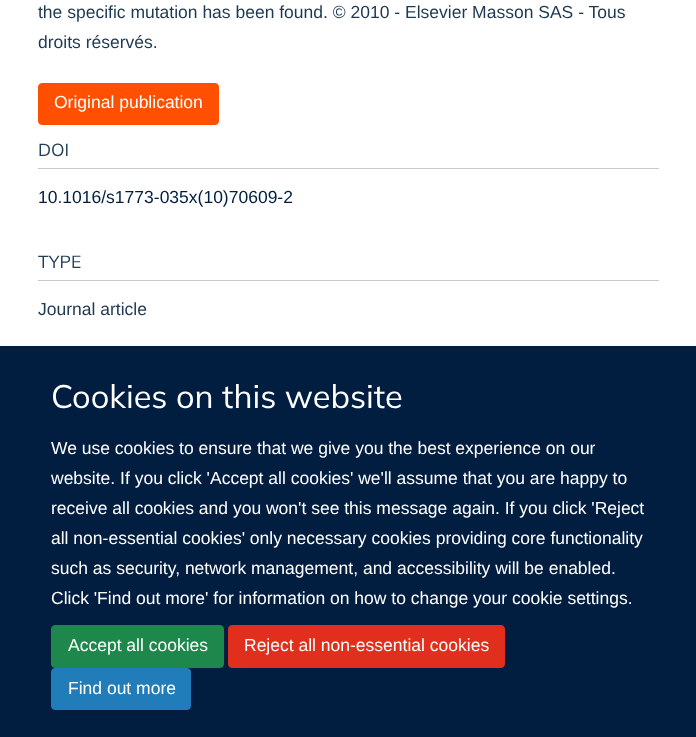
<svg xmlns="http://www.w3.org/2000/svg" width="696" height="737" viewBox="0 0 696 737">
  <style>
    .t1 { font: 17.5px Liberation Sans; fill: #1d3850; }
    .t2 { font: 17.5px Liberation Sans; fill: #fff; }
    .t3 { font: 17.5px Mulish; fill: #203e58; }
    .t4 { font: 17.5px Liberation Sans; fill: #011e41; }
    .t5 { font: 32.5px Mulish; fill: #fff; }
  </style>
  <rect width="100%" height="100%" fill="#fff"/>
  <text x="38" y="18" class="t1">the specific mutation has been found. © 2010 - Elsevier Masson SAS - Tous</text>
  <text x="38" y="48" class="t1">droits réservés.</text>
  <rect x="38.5" y="83.5" width="180" height="41" rx="3.5" fill="#fe5000" stroke="#fe5000"/>
  <text x="54" y="108" class="t2">Original publication</text>
  <rect x="38" y="168" width="621" height="1" fill="#c6cacf"/>
  <text x="38" y="156" class="t3">DOI</text>
  <text x="38" y="203" class="t4">10.1016/s1773-035x(10)70609-2</text>
  <rect x="38" y="280" width="621" height="1" fill="#c6cacf"/>
  <text x="38" y="268" class="t3">TYPE</text>
  <text x="38" y="315" class="t1">Journal article</text>
  <rect x="0" y="346" width="696" height="391" fill="#011e41"/>
  <text x="51" y="408" class="t5">Cookies on this website</text>
  <text x="51" y="454" class="t2">We use cookies to ensure that we give you the best experience on our</text>
  <text x="51" y="484" class="t2">website. If you click 'Accept all cookies' we'll assume that you are happy to</text>
  <text x="51" y="514" class="t2">receive all cookies and you won't see this message again. If you click 'Reject</text>
  <text x="51" y="544" class="t2">all non-essential cookies' only necessary cookies providing core functionality</text>
  <text x="51" y="574" class="t2">such as security, network management, and accessibility will be enabled.</text>
  <text x="51" y="604" class="t2">Click 'Find out more' for information on how to change your cookie settings.</text>
  <rect x="51.5" y="625.5" width="172" height="42" rx="3.5" fill="#1e874b" stroke="#1e874b"/>
  <text x="68" y="651" class="t2">Accept all cookies</text>
  <rect x="228.5" y="625.5" width="276" height="42" rx="3.5" fill="#e22e1c" stroke="#e22e1c"/>
  <text x="244" y="651" class="t2">Reject all non-essential cookies</text>
  <rect x="51.5" y="668.5" width="139" height="41" rx="3.5" fill="#217cba" stroke="#217cba"/>
  <text x="68" y="694" class="t2">Find out more</text>
</svg>
